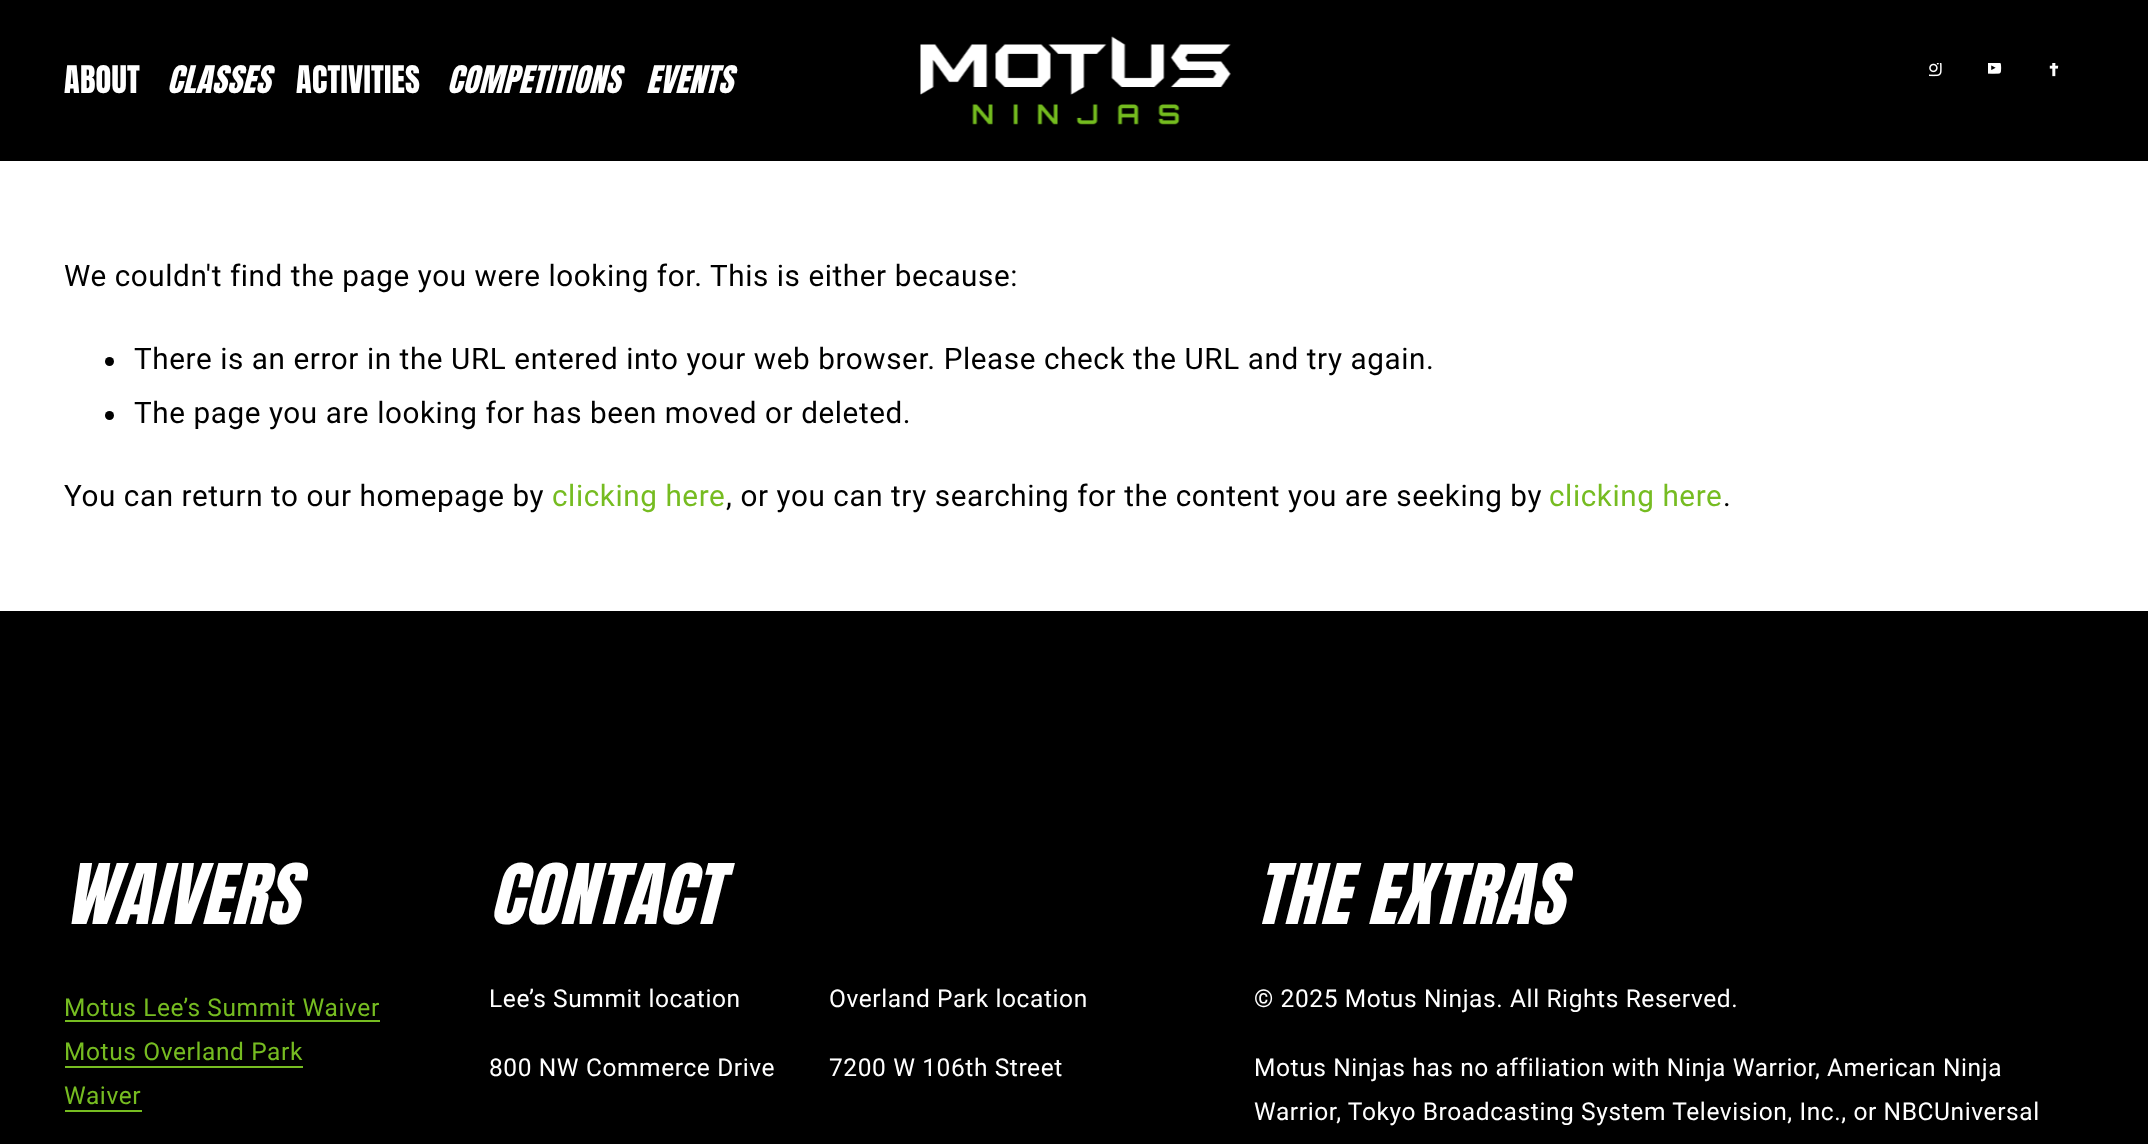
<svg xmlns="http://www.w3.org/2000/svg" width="2148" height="1144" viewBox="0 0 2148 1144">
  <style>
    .t1 { font: 32.25px Anton; letter-spacing: 0.25px; fill: #fff; }
    .t2 { font: italic 32.25px Anton; letter-spacing: 0.25px; fill: #fff; }
    .t3 { font: 29.65px Roboto; letter-spacing: 0.6px; fill: #000; }
    .t4 { font: 29.65px Roboto; letter-spacing: 0.6px; fill: #76bc21; }
    .t5 { font: italic 71px Anton; letter-spacing: 0.75px; fill: #fff; }
    .t6 { font: 24.5px Roboto; letter-spacing: 0.6px; fill: #76bc21; }
    .t7 { font: 24.5px Roboto; letter-spacing: 0.6px; fill: #fff; }
  </style>
  <rect width="100%" height="100%" fill="#fff"/>
  <rect x="0" y="0" width="2148" height="161" fill="#000"/>
  <text x="64" y="93" class="t1">ABOUT</text>
  <text x="167" y="93" class="t2">CLASSES</text>
  <text x="296" y="93" class="t1">ACTIVITIES</text>
  <text x="447" y="93" class="t2">COMPETITIONS</text>
  <text x="646" y="93" class="t2">EVENTS</text>
  <image x="920" y="36" width="311" height="89" href="images/1.png"/>
  <image x="1929" y="63" width="13" height="14" href="images/2.png"/>
  <image x="1988" y="63" width="14" height="11" href="images/3.png"/>
  <image x="2049" y="63" width="10" height="14" href="images/4.png"/>
  <text x="64" y="286" class="t3">We couldn't find the page you were looking for. This is either because:</text>
  <circle cx="109.5" cy="361.5" r="4.5" fill="#000"/>
  <text x="134" y="369" class="t3">There is an error in the URL entered into your web browser. Please check the URL and try again.</text>
  <circle cx="109.5" cy="415.5" r="4.5" fill="#000"/>
  <text x="134" y="423" class="t3">The page you are looking for has been moved or deleted.</text>
  <text x="64" y="506" class="t3">You can return to our homepage by</text>
  <text x="552" y="506" class="t4">clicking here</text>
  <text x="726" y="506" class="t3">, or you can try searching for the content you are seeking by</text>
  <text x="1549" y="506" class="t4">clicking here</text>
  <text x="1723" y="506" class="t3">.</text>
  <rect x="0" y="611" width="2148" height="533" fill="#000"/>
  <text x="64" y="924" class="t5">WAIVERS</text>
  <text x="64" y="1016" class="t6">Motus Lee’s Summit Waiver</text>
  <rect x="65" y="1020" width="315" height="2" fill="#76bc21"/>
  <text x="64" y="1060" class="t6">Motus Overland Park</text>
  <rect x="65" y="1066" width="238" height="2" fill="#76bc21"/>
  <text x="64" y="1104" class="t6">Waiver</text>
  <rect x="65" y="1110" width="77" height="2" fill="#76bc21"/>
  <text x="489" y="924" class="t5">CONTACT</text>
  <text x="1254" y="924" class="t5">THE EXTRAS</text>
  <text x="489" y="1007" class="t7">Lee’s Summit location</text>
  <text x="489" y="1076" class="t7">800 NW Commerce Drive</text>
  <text x="829" y="1007" class="t7">Overland Park location</text>
  <text x="829" y="1076" class="t7">7200 W 106th Street</text>
  <text x="1254" y="1007" class="t7">© 2025 Motus Ninjas. All Rights Reserved.</text>
  <text x="1254" y="1076" class="t7">Motus Ninjas has no affiliation with Ninja Warrior, American Ninja</text>
  <text x="1254" y="1120" class="t7">Warrior, Tokyo Broadcasting System Television, Inc., or NBCUniversal</text>
</svg>
